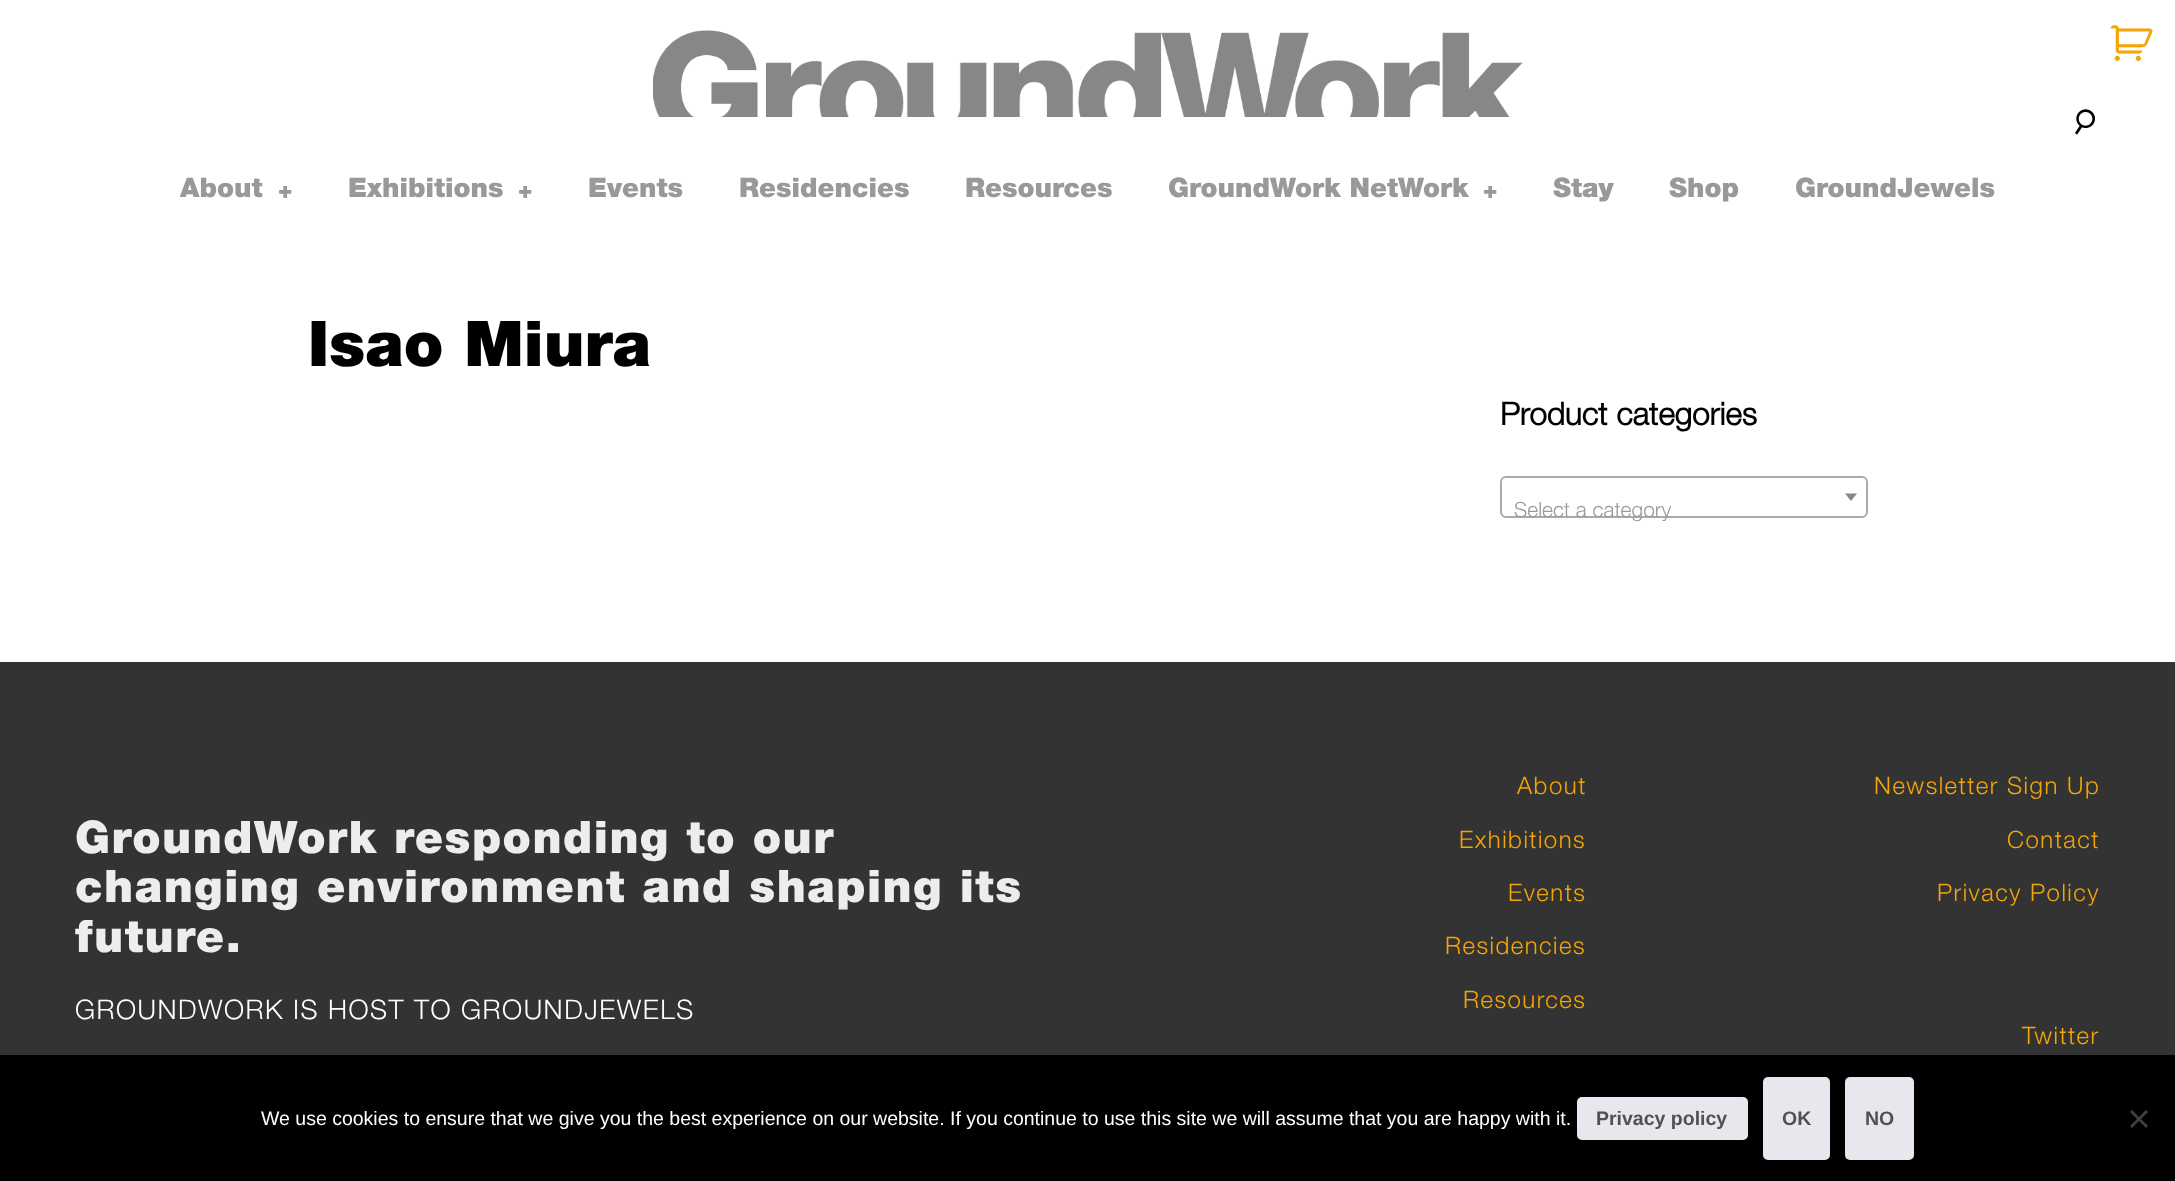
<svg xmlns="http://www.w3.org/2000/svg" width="2175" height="1181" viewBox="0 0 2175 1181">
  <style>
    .t1 { font: 900 27px 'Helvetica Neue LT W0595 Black'; fill: #999; }
    .t2 { font: 900 24px 'Helvetica Neue LT W0595 Black'; fill: #999; }
    .t3 { font: 900 63px 'Helvetica Neue LT W0595 Black'; fill: #000; }
    .t4 { font: bold 31.5px 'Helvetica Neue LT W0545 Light'; fill: #000; }
    .t5 { font: 300 21px 'Helvetica Neue LT W0545 Light'; fill: #999; }
    .t6 { font: 900 45px 'Helvetica Neue LT W0595 Black'; letter-spacing: 1.5px; fill: #ededed; }
    .t7 { font: 300 27px 'Helvetica Neue LT W0545 Light'; letter-spacing: 1.5px; fill: #fff; }
    .t8 { font: 300 24px 'Helvetica Neue LT W0545 Light'; letter-spacing: 1.5px; fill: #f4a507; }
    .t9 { font: 19.5px Liberation Sans; fill: #fff; }
    .t10 { font: bold 19.5px Liberation Sans; fill: #515151; }
  </style>
  <rect width="100%" height="100%" fill="#fff"/>
  <image x="653" y="30" width="870" height="87" href="images/1.png"/>
  <image x="2110" y="25" width="43" height="36" href="images/2.png"/>
  <image x="2075" y="109" width="20" height="26" href="images/3.png"/>
  <text x="180" y="197" class="t1">About</text>
  <text x="278" y="198" class="t2">+</text>
  <text x="348" y="197" class="t1">Exhibitions</text>
  <text x="518" y="198" class="t2">+</text>
  <text x="588" y="197" class="t1">Events</text>
  <text x="739" y="197" class="t1">Residencies</text>
  <text x="965" y="197" class="t1">Resources</text>
  <text x="1168" y="197" class="t1">GroundWork NetWork</text>
  <text x="1483" y="198" class="t2">+</text>
  <text x="1553" y="197" class="t1">Stay</text>
  <text x="1669" y="197" class="t1">Shop</text>
  <text x="1795" y="197" class="t1">GroundJewels</text>
  <text x="308" y="366" class="t3">Isao Miura</text>
  <text x="1500" y="425" class="t4">Product categories</text>
  <rect x="1501" y="477" width="366" height="40" rx="5" fill="none" stroke="#aaa" stroke-width="2"/>
  <path d="M1845 493.5H1857L1851 501Z" fill="#888"/>
  <text x="1514" y="517" class="t5">Select a category</text>
  <rect x="0" y="662" width="2175" height="393" fill="#333"/>
  <text x="75" y="853" class="t6">GroundWork responding to our</text>
  <text x="75" y="902" class="t6">changing environment and shaping its</text>
  <text x="75" y="952" class="t6">future.</text>
  <text x="75" y="1019" class="t7">GROUNDWORK IS HOST TO GROUNDJEWELS</text>
  <text x="1517" y="794" class="t8">About</text>
  <text x="1459" y="848" class="t8">Exhibitions</text>
  <text x="1508" y="901" class="t8">Events</text>
  <text x="1445" y="954" class="t8">Residencies</text>
  <text x="1463" y="1008" class="t8">Resources</text>
  <text x="1874" y="794" class="t8">Newsletter Sign Up</text>
  <text x="2007" y="848" class="t8">Contact</text>
  <text x="1937" y="901" class="t8">Privacy Policy</text>
  <text x="2022" y="1044" class="t8">Twitter</text>
  <rect x="0" y="1055" width="2175" height="126" fill="#000"/>
  <text x="261" y="1125" class="t9">We use cookies to ensure that we give you the best experience on our website. If you continue to use this site we will assume that you are happy with it.</text>
  <rect x="1577" y="1097" width="171" height="43" rx="5" fill="#e9e6ed"/>
  <text x="1596" y="1125" class="t10">Privacy policy</text>
  <rect x="1763" y="1077" width="67" height="83" rx="5" fill="#e9e6ed"/>
  <text x="1782" y="1125" class="t10">OK</text>
  <rect x="1845" y="1077" width="69" height="83" rx="5" fill="#e9e6ed"/>
  <text x="1865" y="1125" class="t10">NO</text>
  <path d="M2146 1110L2148 1112L2132 1128L2130 1126Z" fill="#404040"/>
  <path d="M2130 1112L2132 1110L2148 1126L2146 1128Z" fill="#404040"/>
</svg>
